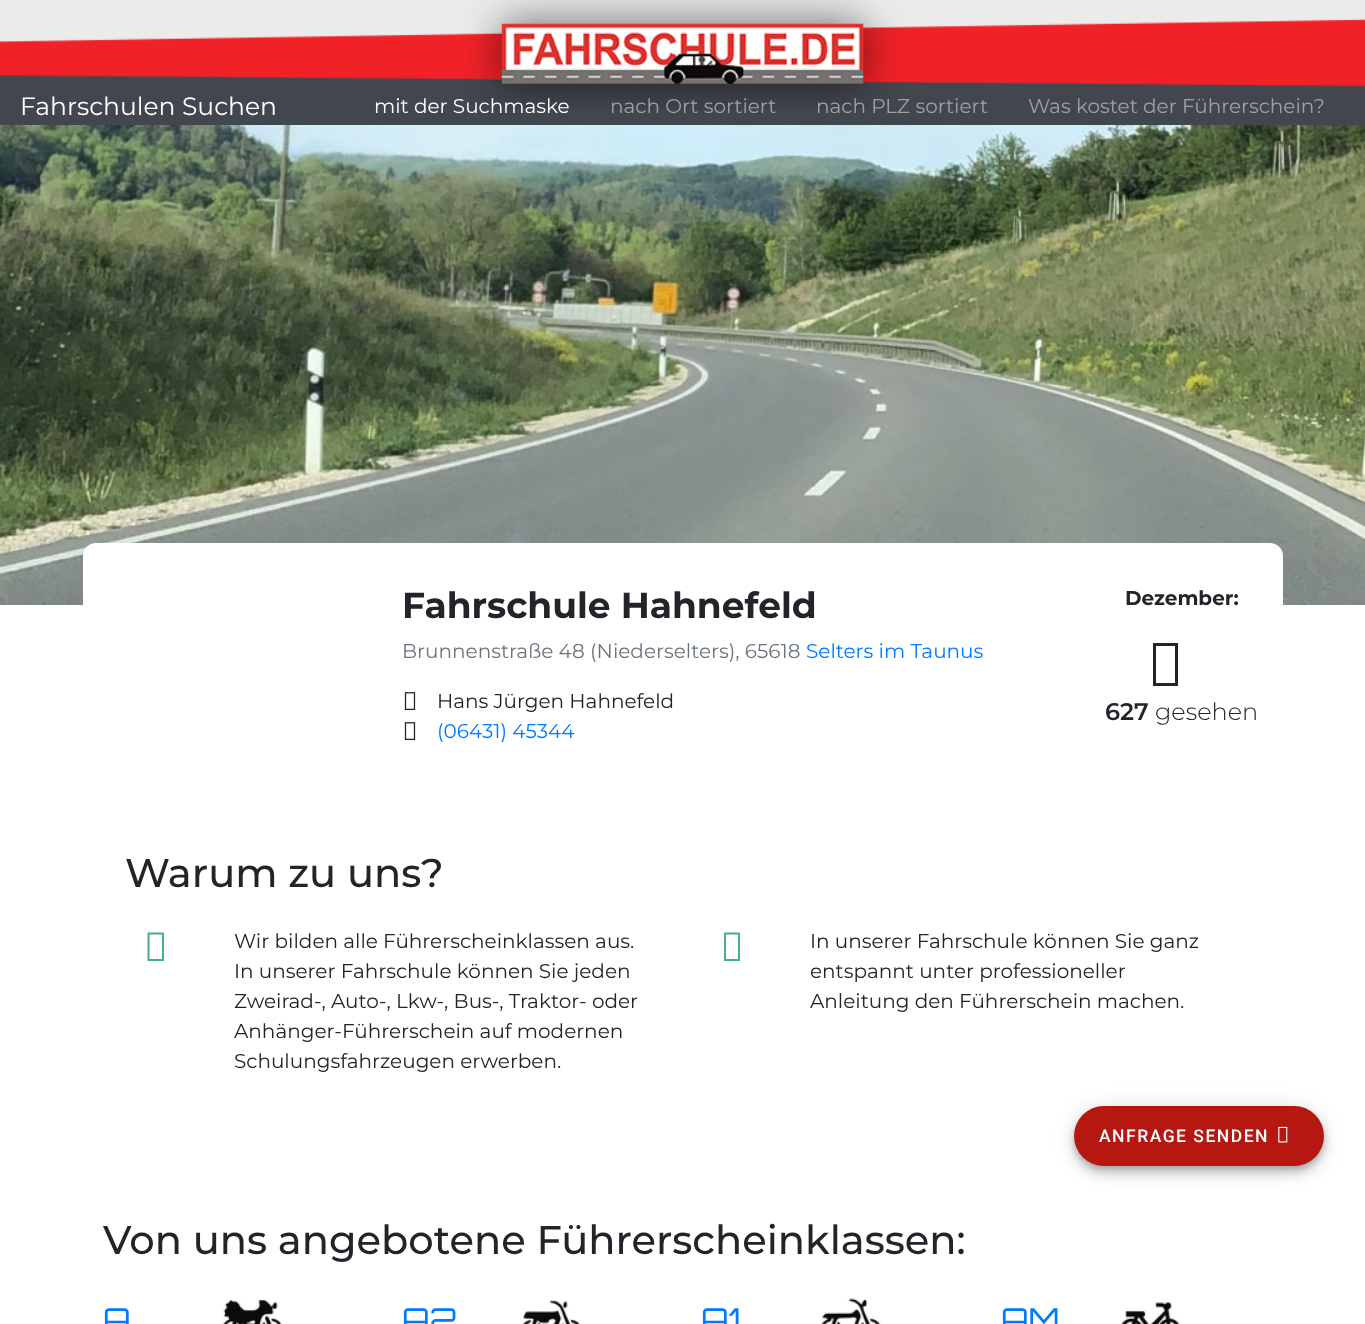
<svg xmlns="http://www.w3.org/2000/svg" width="1365" height="1324" viewBox="0 0 1365 1324">
  <style>
    .t1 { font: 25px Montserrat; fill: #fff; }
    .t2 { font: 20px Montserrat; fill: #fff; }
    .t3 { font: 20px Montserrat; fill: #9fa0a4; }
    .t4 { font: bold 36px Montserrat; fill: #212529; }
    .t5 { font: 20px Montserrat; fill: #6c757d; }
    .t6 { font: 20px Montserrat; fill: #007bff; }
    .t7 { font: 20px Montserrat; fill: #212529; }
    .t8 { font: bold 20px Montserrat; fill: #212529; }
    .t9 { font: 600 24px Montserrat; fill: #212529; }
    .t10 { font: 300 24px Montserrat; fill: #212529; }
    .t11 { font: 500 40px Montserrat; fill: #212529; }
    .t12 { font: 33px Orbitron; fill: #007bff; }
    .t13 { font: 500 17.5px Roboto; letter-spacing: 1.5px; fill: #fff; }
  </style>
  <rect width="100%" height="100%" fill="#fff"/>
  <rect x="0" y="109" width="1365" height="16" fill="#42464e"/>
  <image x="0" y="0" width="1365" height="109" href="images/1.png"/>
  <text x="20" y="115" class="t1">Fahrschulen Suchen</text>
  <text x="374" y="113" class="t2">mit der Suchmaske</text>
  <text x="610" y="113" class="t3">nach Ort sortiert</text>
  <text x="816" y="113" class="t3">nach PLZ sortiert</text>
  <text x="1028" y="113" class="t3">Was kostet der Führerschein?</text>
  <image x="0" y="125" width="1365" height="480" href="images/2.png"/>
  <rect x="83" y="543" width="1200" height="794" rx="13" fill="#fff"/>
  <text x="402" y="618" class="t4">Fahrschule Hahnefeld</text>
  <text x="402" y="658" class="t5">Brunnenstraße 48 (Niederselters), 65618</text>
  <text x="806" y="658" class="t6">Selters im Taunus</text>
  <image x="404" y="692" width="12" height="18" href="images/3.png"/>
  <text x="437" y="708" class="t7">Hans Jürgen Hahnefeld</text>
  <image x="404" y="722" width="12" height="18" href="images/3.png"/>
  <text x="437" y="738" class="t6">(06431) 45344</text>
  <text x="1125" y="605" class="t8">Dezember:</text>
  <path d="M1153 686V643H1178V686ZM1156 683H1175V646H1156Z" fill="#212529"/>
  <text x="1105" y="720" class="t9">627</text>
  <text x="1155" y="720" class="t10">gesehen</text>
  <text x="125" y="887" class="t11">Warum zu uns?</text>
  <path d="M147.5 961V932.5H164V961ZM149.5 959H162V934.5H149.5Z" fill="#49ae88"/>
  <text x="234" y="948" class="t7">Wir bilden alle Führerscheinklassen aus.</text>
  <text x="234" y="978" class="t7">In unserer Fahrschule können Sie jeden</text>
  <text x="234" y="1008" class="t7">Zweirad-, Auto-, Lkw-, Bus-, Traktor- oder</text>
  <text x="234" y="1038" class="t7">Anhänger-Führerschein auf modernen</text>
  <text x="234" y="1068" class="t7">Schulungsfahrzeugen erwerben.</text>
  <path d="M724 961V932.5H740V961ZM726 959H738V934.5H726Z" fill="#49ae88"/>
  <text x="810" y="948" class="t7">In unserer Fahrschule können Sie ganz</text>
  <text x="810" y="978" class="t7">entspannt unter professioneller</text>
  <text x="810" y="1008" class="t7">Anleitung den Führerschein machen.</text>
  <text x="103" y="1254" class="t11">Von uns angebotene Führerscheinklassen:</text>
  <text x="103" y="1332" class="t12">A</text>
  <image x="222" y="1299" width="60" height="25" href="images/4.png"/>
  <text x="402" y="1332" class="t12">A2</text>
  <image x="522" y="1300" width="58" height="24" href="images/5.png"/>
  <text x="701" y="1332" class="t12">A1</text>
  <image x="821" y="1298" width="60" height="26" href="images/6.png"/>
  <text x="1001" y="1332" class="t12">AM</text>
  <image x="1121" y="1302" width="59" height="22" href="images/7.png"/>
  <rect x="1074" y="1108" width="250" height="60" rx="30" fill="#0000001f" filter="blur(11px)"/>
  <rect x="1074" y="1114" width="250" height="60" rx="30" fill="#00000024" filter="blur(6px)"/>
  <rect x="1075" y="1111" width="248" height="58" rx="29" fill="#00000033" filter="blur(3px)"/>
  <rect x="1074" y="1106" width="250" height="60" rx="30" fill="#b61710"/>
  <text x="1099" y="1142" class="t13">ANFRAGE SENDEN</text>
  <image x="1278" y="1126" width="10" height="17" href="images/8.png"/>
</svg>
